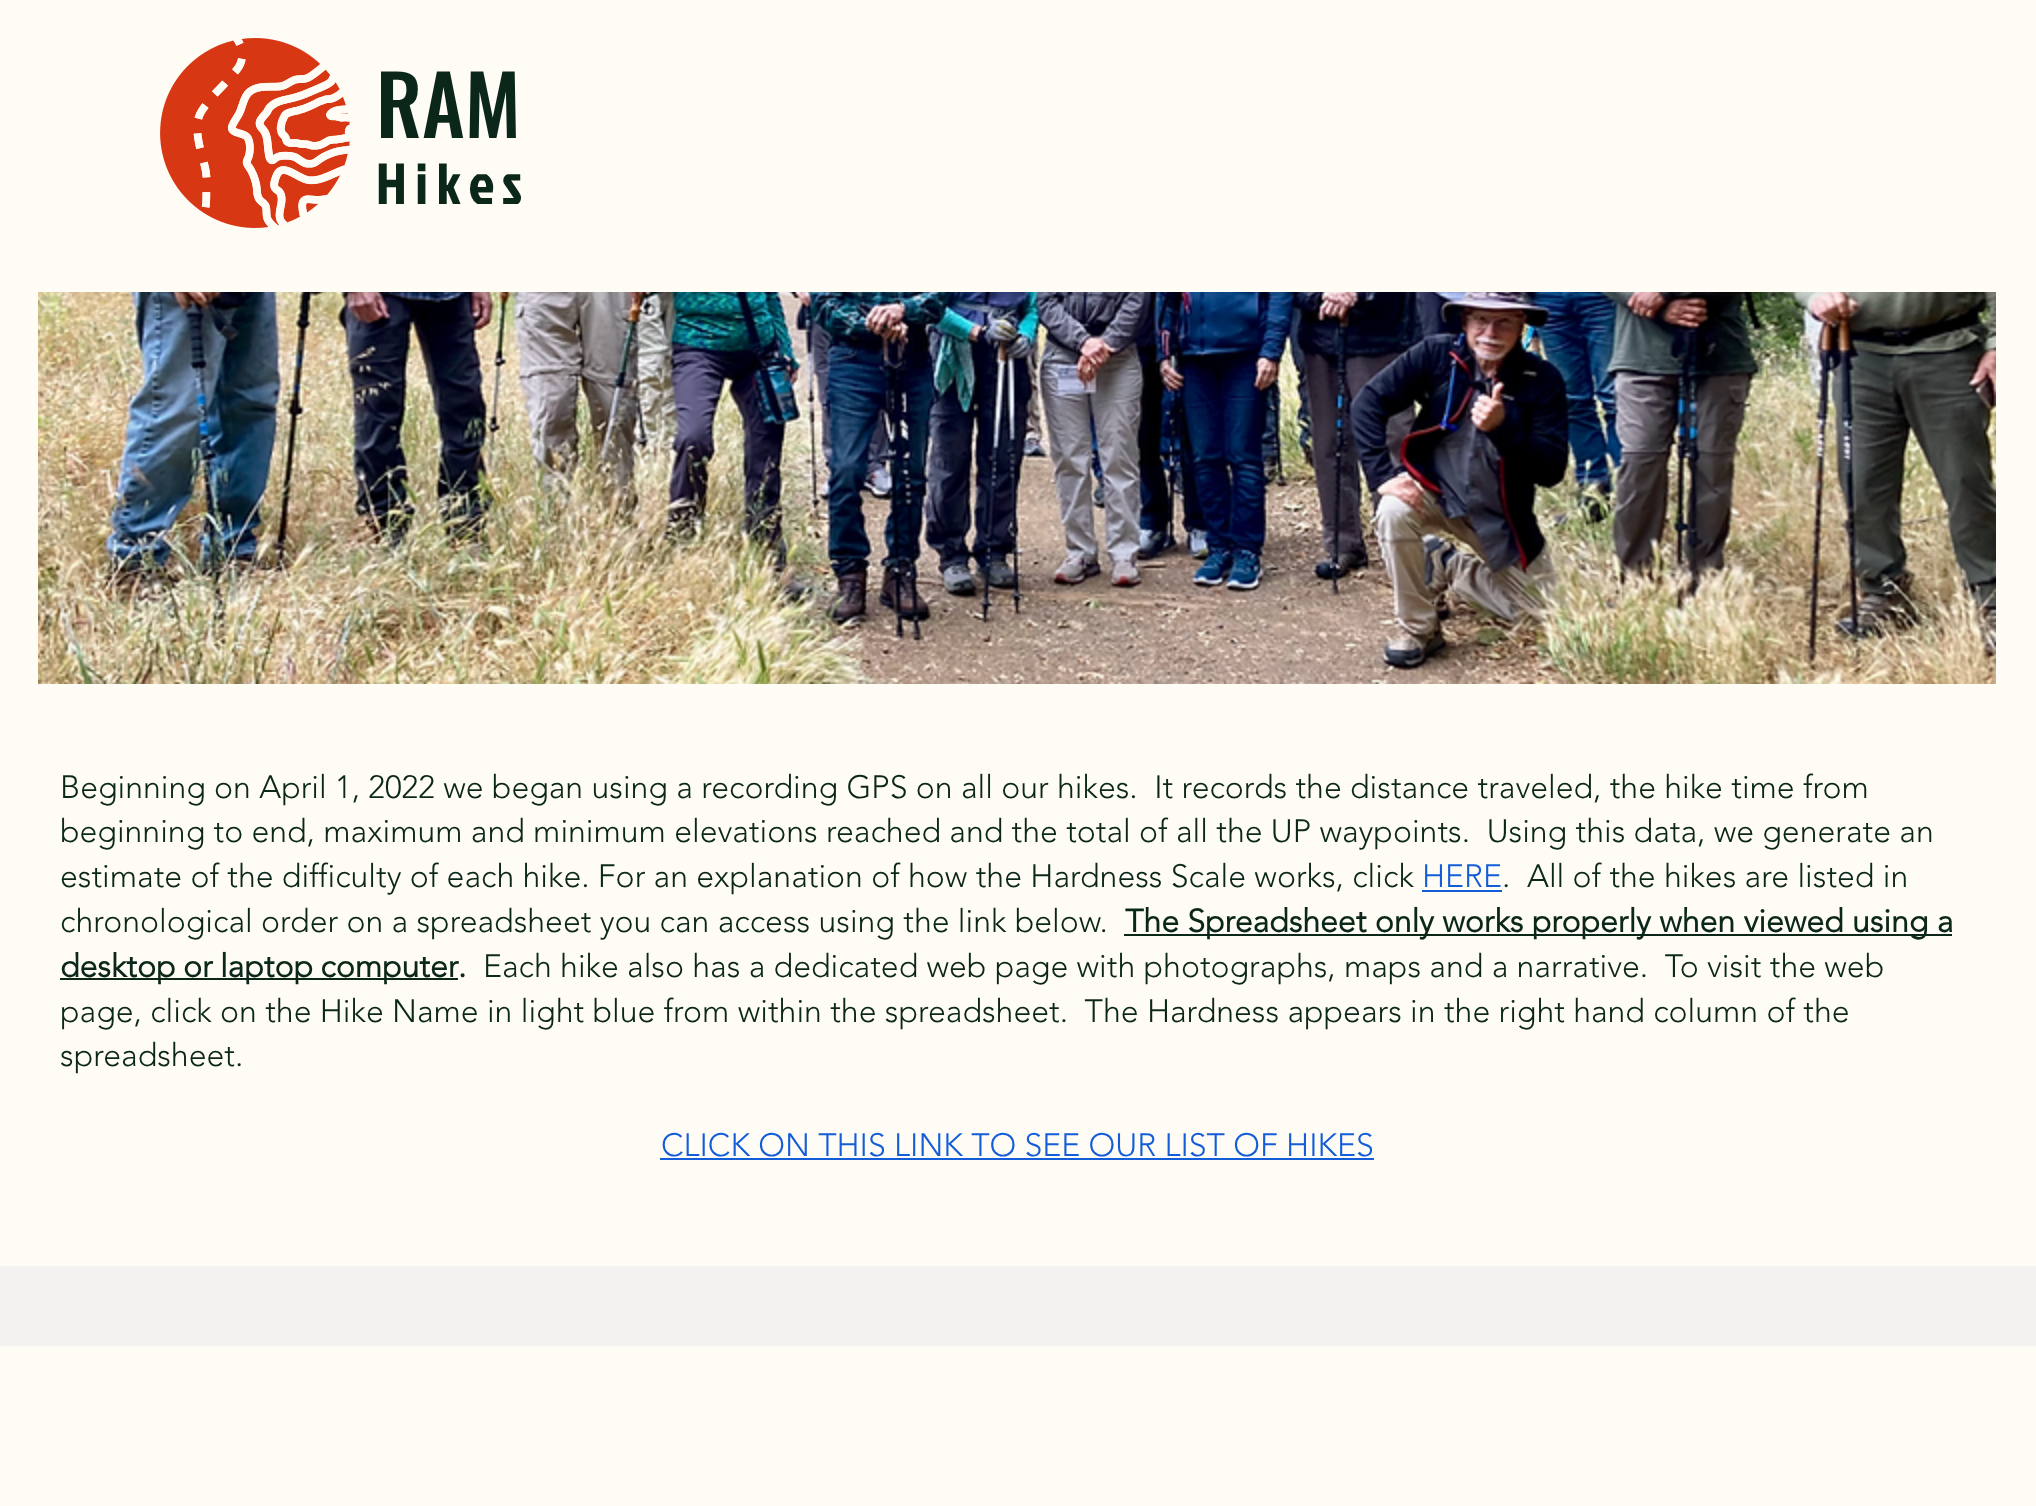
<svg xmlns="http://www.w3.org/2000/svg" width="2036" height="1506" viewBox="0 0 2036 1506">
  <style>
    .t1 { font: 500 82px Oswald; fill: #0b2719; }
    .t2 { font: 58px Jockey One; letter-spacing: 8.5px; fill: #0b2719; }
    .t3 { font: 300 32px 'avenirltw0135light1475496'; fill: #0b2719; }
    .t4 { font: 300 32px 'avenirltw0135light1475496'; fill: #135dd8; }
    .t5 { font: bold 32px 'avenirltw0135light1475496'; fill: #0b2719; }
  </style>
  <rect width="100%" height="100%" fill="#fffcf6"/>
  <image x="160" y="38" width="190" height="190" href="images/1.png"/>
  <text x="376" y="138" class="t1">RAM</text>
  <text x="376" y="204" class="t2">Hikes</text>
  <image x="38" y="292" width="1958" height="392" href="images/2.png"/>
  <text x="60" y="798" class="t3" xml:space="preserve">Beginning on April 1, 2022 we began using a recording GPS on all our hikes.  It records the distance traveled, the hike time from</text>
  <text x="60" y="842" class="t3" xml:space="preserve">beginning to end, maximum and minimum elevations reached and the total of all the UP waypoints.  Using this data, we generate an</text>
  <text x="60" y="887" class="t3">estimate of the difficulty of each hike. For an explanation of how the Hardness Scale works, click</text>
  <text x="1422" y="887" class="t4">HERE</text>
  <rect x="1422" y="890" width="80" height="2" fill="#135dd8"/>
  <text x="1502" y="887" class="t3" xml:space="preserve">.  All of the hikes are listed in</text>
  <text x="60" y="932" class="t3">chronological order on a spreadsheet you can access using the link below.</text>
  <rect x="1124" y="934" width="828" height="2" fill="#0b2719"/>
  <text x="1125" y="932" class="t5">The Spreadsheet only works properly when viewed using a</text>
  <rect x="60" y="978" width="398" height="2" fill="#0b2719"/>
  <text x="60" y="977" word-spacing="-1" class="t5">desktop or laptop computer</text>
  <text x="458" y="977" class="t5">.</text>
  <text x="483" y="977" class="t3" xml:space="preserve">Each hike also has a dedicated web page with photographs, maps and a narrative.  To visit the web</text>
  <text x="60" y="1022" class="t3" xml:space="preserve">page, click on the Hike Name in light blue from within the spreadsheet.  The Hardness appears in the right hand column of the</text>
  <text x="60" y="1066" class="t3">spreadsheet.</text>
  <text x="661" y="1156" class="t4">CLICK ON THIS LINK TO SEE OUR LIST OF HIKES</text>
  <rect x="660" y="1158" width="714" height="2" fill="#135dd8"/>
  <rect x="0" y="1266" width="2036" height="80" fill="#f3f2f1"/>
</svg>
